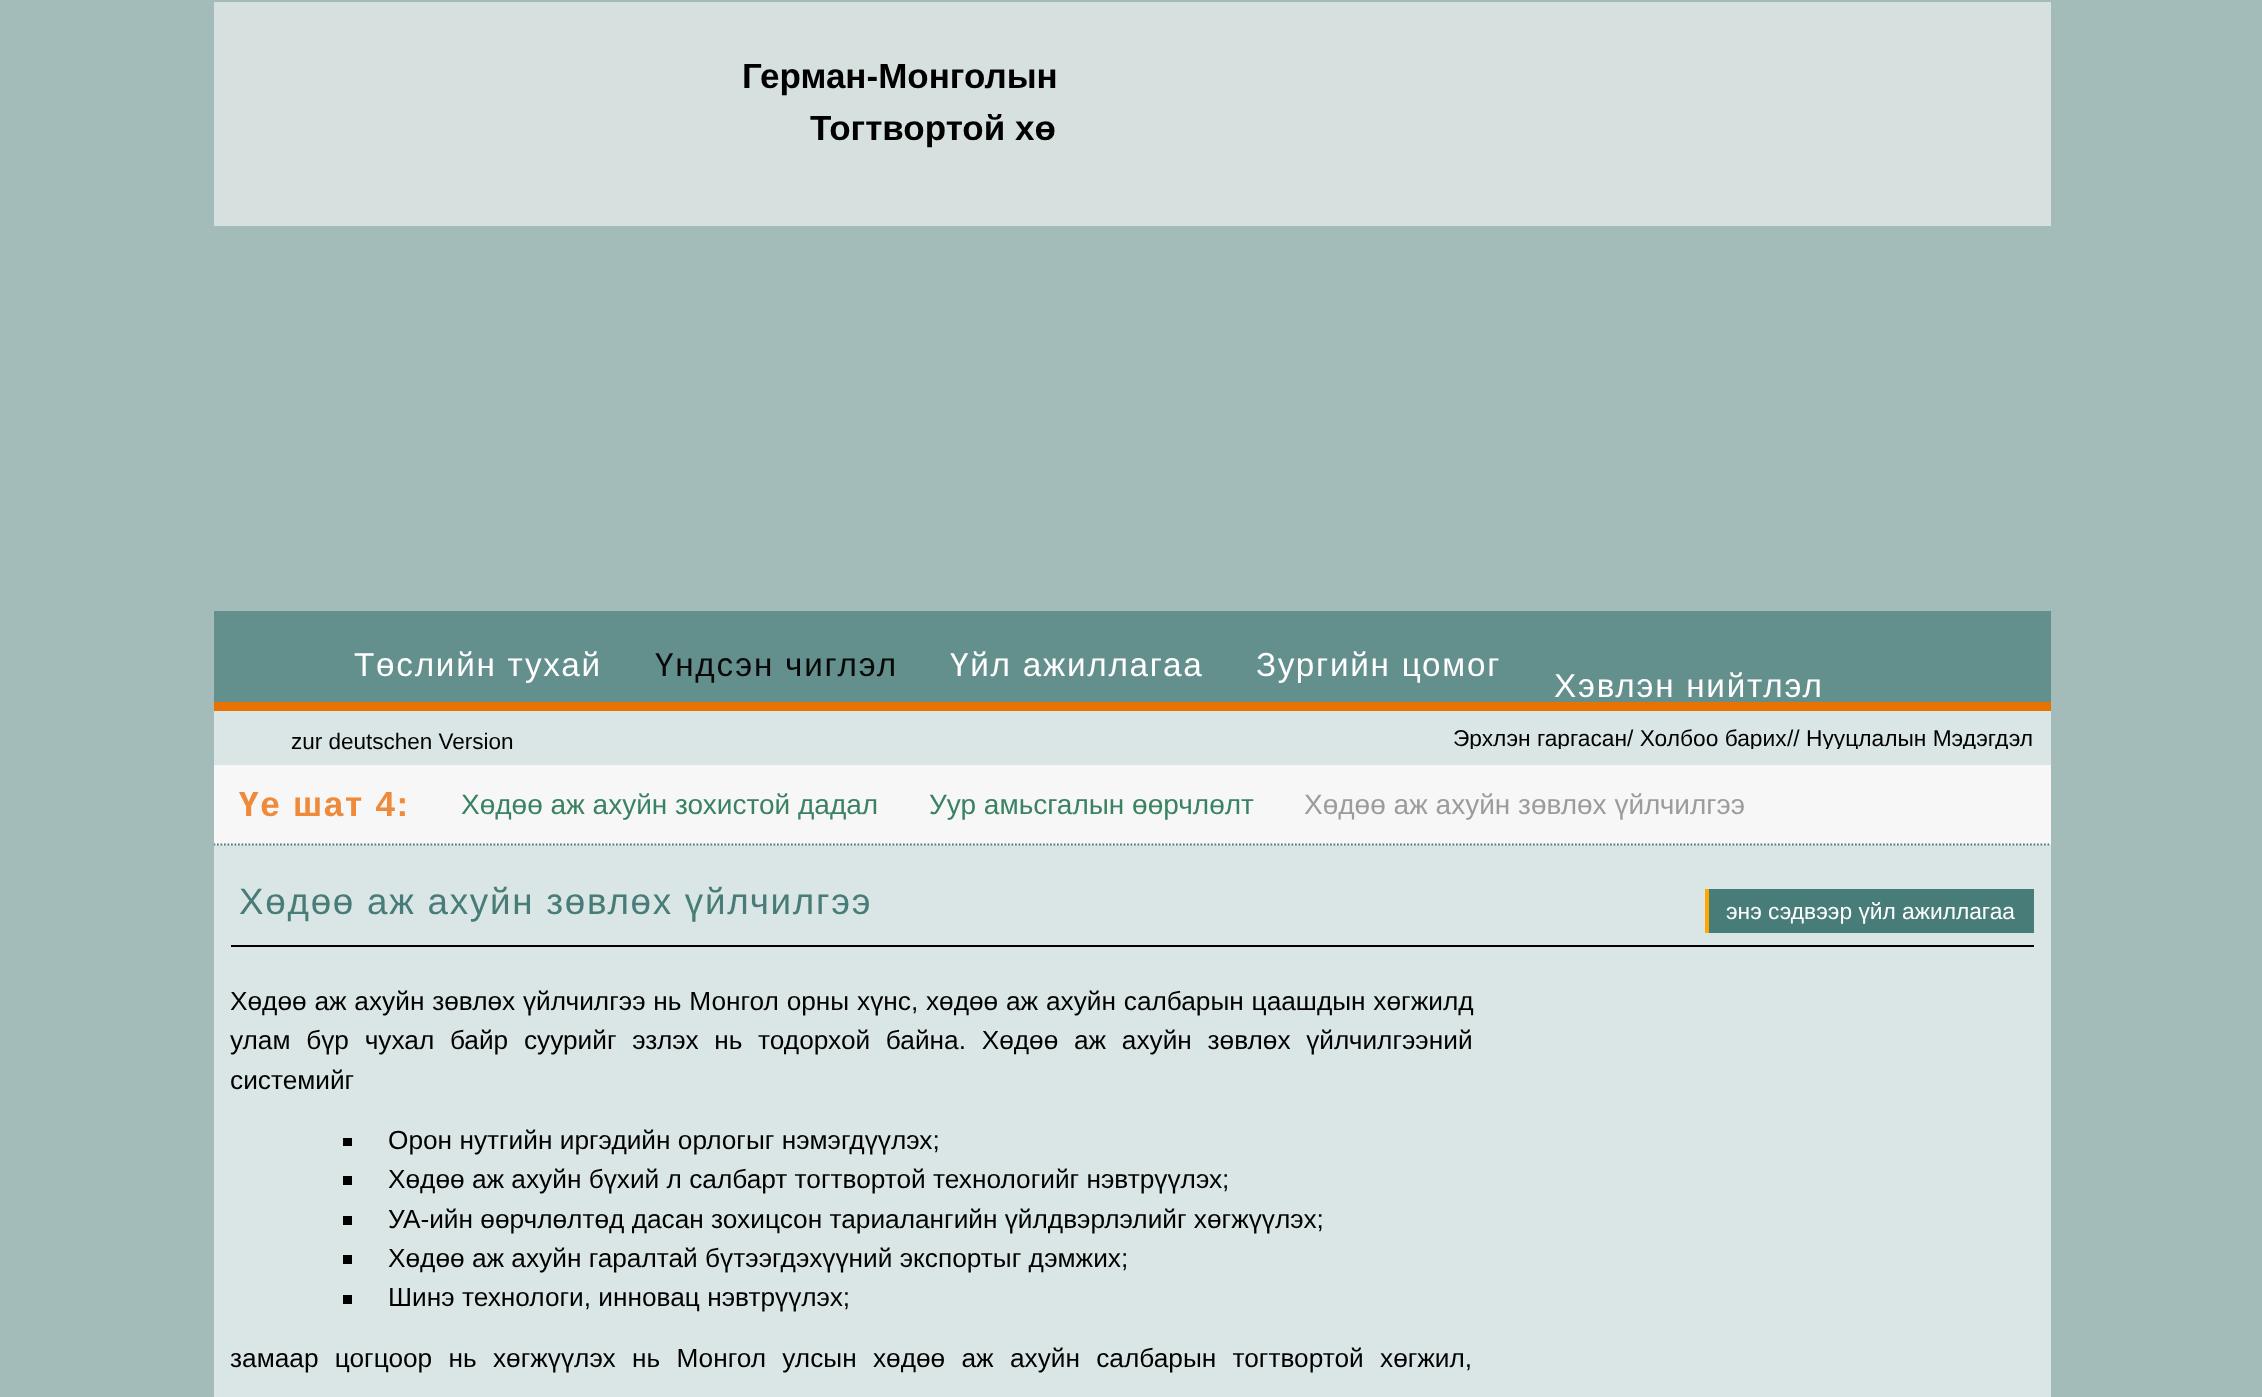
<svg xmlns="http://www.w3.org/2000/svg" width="2262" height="1397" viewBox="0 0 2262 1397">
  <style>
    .t1 { font: bold 35px Liberation Sans; fill: #000; }
    .t2 { font: 33.25px Liberation Sans; letter-spacing: 1.75px; fill: #fff; }
    .t3 { font: 33.25px Liberation Sans; letter-spacing: 1.75px; fill: #080808; }
    .t4 { font: 22.5px Liberation Sans; fill: #000; }
    .t5 { font: 22.75px Liberation Sans; fill: #000; }
    .t6 { font: bold 35px Liberation Sans; letter-spacing: 1.75px; fill: #ee8a39; }
    .t7 { font: 28px Liberation Sans; fill: #3a8261; }
    .t8 { font: 28px Liberation Sans; fill: #9c9c9c; }
    .t9 { font: 36.75px Liberation Sans; letter-spacing: 1.75px; fill: #487c79; }
    .t10 { font: 22.75px Liberation Sans; fill: #fff; }
    .t11 { font: 26.25px Liberation Sans; fill: #000; }
  </style>
  <defs>
    <clipPath id="clip1"><rect x="1453" y="726" width="334" height="23"/></clipPath>
    <clipPath id="clip2"><rect x="1787" y="726" width="247" height="23"/></clipPath>
    <clipPath id="clip3"><rect x="214" y="711" width="1837" height="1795"/></clipPath>
  </defs>
  <rect width="100%" height="100%" fill="#a3bcb9"/>
  <rect x="214" y="702" width="1837" height="9" fill="#e97300"/>
  <rect x="214" y="2" width="1837" height="224" fill="#d6e1df"/>
  <text x="742" y="88" class="t1">Герман-Монголын</text>
  <text x="810" y="140" class="t1">Тогтвортой хө</text>
  <rect x="214" y="611" width="1837" height="91" fill="#638f8c"/>
  <text x="354" y="676" class="t2">Төслийн тухай</text>
  <text x="655" y="676" class="t3">Үндсэн чиглэл</text>
  <text x="950" y="676" class="t2">Үйл ажиллагаа</text>
  <text x="1256" y="676" class="t2">Зургийн цомог</text>
  <text x="1554" y="697" class="t2">Хэвлэн нийтлэл</text>
  <rect x="214" y="711" width="1837" height="686" fill="#dae5e5"/>
  <text x="291" y="749" class="t4">zur deutschen Version</text>
  <g clip-path="url(#clip1)">
    <text x="1453" y="746" class="t5">Эрхлэн гаргасан/ Холбоо барих</text>
  </g>
  <text x="1787" y="746" class="t5">//</text>
  <g clip-path="url(#clip2)">
    <text x="1806" y="746" class="t5">Hууцлалын Mэдэгдэл</text>
  </g>
  <rect x="214" y="765" width="1837" height="80" fill="#f7f7f7"/>
  <g clip-path="url(#clip3)">
    <path d="M213.5 844.5H2051" fill="none" stroke="#487c79" stroke-width="1.8" stroke-dasharray="1.75 1.75"/>
  </g>
  <text x="239" y="816" class="t6">Үе шат 4:</text>
  <text x="461" y="814" class="t7">Хөдөө аж ахуйн зохистой дадал</text>
  <text x="929" y="814" class="t7">Уур амьсгалын өөрчлөлт</text>
  <text x="1304" y="814" class="t8">Хөдөө аж ахуйн зөвлөх үйлчилгээ</text>
  <rect x="231" y="945" width="1803" height="2" fill="#000"/>
  <text x="239" y="914" class="t9">Хөдөө аж ахуйн зөвлөх үйлчилгээ</text>
  <rect x="1709" y="889" width="325" height="44" fill="#487c79"/>
  <rect x="1705" y="889" width="4" height="44" fill="#ffa600"/>
  <text x="1726" y="919" class="t10">энэ сэдвээр үйл ажиллагаа</text>
  <text x="230" y="1010" word-spacing="0.5" class="t11">Хөдөө аж ахуйн зөвлөх үйлчилгээ нь Монгол орны хүнс, хөдөө аж ахуйн салбарын цаашдын хөгжилд</text>
  <text x="230" y="1049" word-spacing="8.4" class="t11">улам бүр чухал байр суурийг эзлэх нь тодорхой байна. Хөдөө аж ахуйн зөвлөх үйлчилгээний</text>
  <text x="230" y="1089" class="t11">системийг</text>
  <rect x="343" y="1138" width="9" height="8" fill="#000"/>
  <text x="388" y="1149" class="t11">Орон нутгийн иргэдийн орлогыг нэмэгдүүлэх;</text>
  <rect x="343" y="1176" width="9" height="9" fill="#000"/>
  <text x="388" y="1188" class="t11">Хөдөө аж ахуйн бүхий л салбарт тогтвортой технологийг нэвтрүүлэх;</text>
  <rect x="343" y="1216" width="9" height="9" fill="#000"/>
  <text x="388" y="1228" class="t11">УА-ийн өөрчлөлтөд дасан зохицсон тариалангийн үйлдвэрлэлийг хөгжүүлэх;</text>
  <rect x="343" y="1255" width="9" height="9" fill="#000"/>
  <text x="388" y="1267" class="t11">Хөдөө аж ахуйн гаралтай бүтээгдэхүүний экспортыг дэмжих;</text>
  <rect x="343" y="1295" width="9" height="9" fill="#000"/>
  <text x="388" y="1306" class="t11">Шинэ технологи, инновац нэвтрүүлэх;</text>
  <text x="230" y="1367" word-spacing="9" class="t11">замаар цогцоор нь хөгжүүлэх нь Монгол улсын хөдөө аж ахуйн салбарын тогтвортой хөгжил,</text>
</svg>
